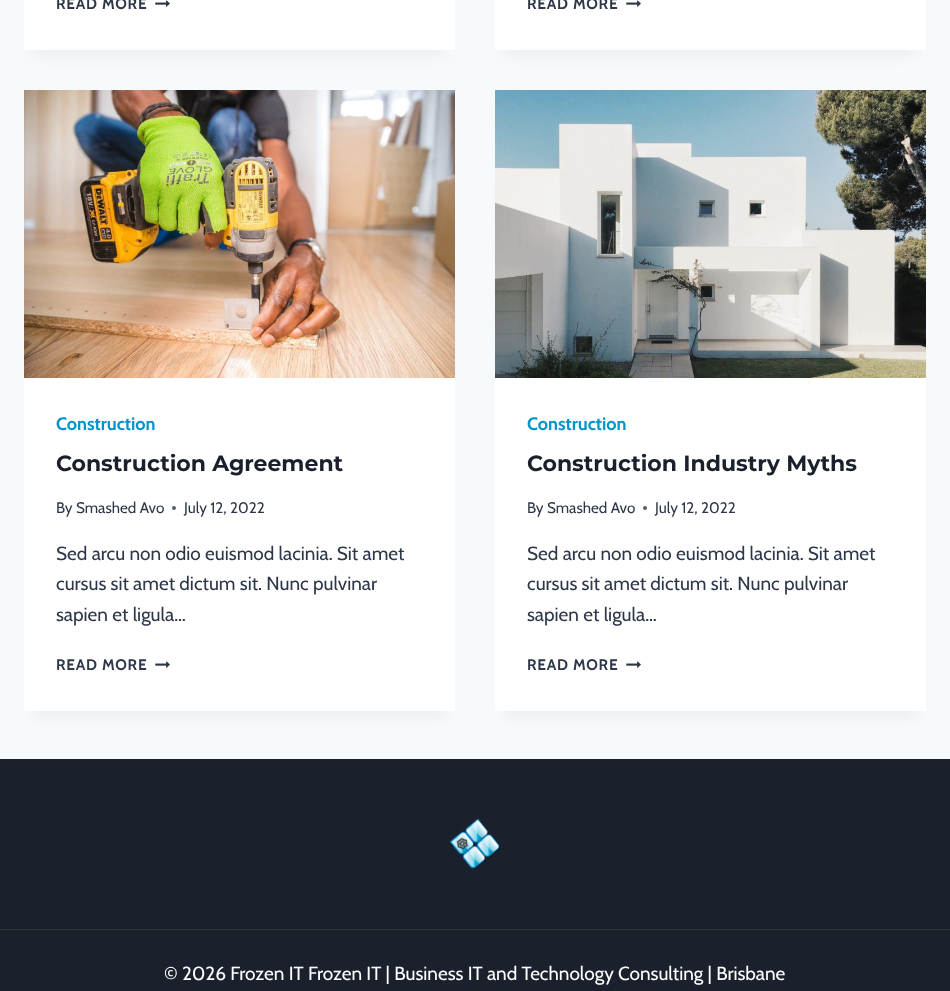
<svg xmlns="http://www.w3.org/2000/svg" width="950" height="991" viewBox="0 0 950 991">
  <style>
    .t1 { font: bold 15.25px Cabin; letter-spacing: 0.75px; fill: #2d3748; }
    .t2 { font: bold 18px Cabin; fill: #0194cb; }
    .t3 { font: bold 22px Montserrat; fill: #1a202c; }
    .t4 { font: 15.25px Cabin; fill: #2d3748; }
    .t5 { font: 19px Cabin; fill: #2d3748; }
    .t6 { font: 19px Cabin; fill: #fff; }
  </style>
  <rect width="100%" height="100%" fill="#f7fafc"/>
  <rect x="34" y="-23" width="411" height="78" fill="#0000000d" filter="blur(7.5px)"/>
  <rect x="24" y="0" width="431" height="50" fill="#fff"/>
  <text x="56" y="9" class="t1">READ MORE</text>
  <image x="155" y="0" width="15" height="7" href="images/1.png"/>
  <rect x="505" y="-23" width="411" height="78" fill="#0000000d" filter="blur(7.5px)"/>
  <rect x="495" y="0" width="431" height="50" fill="#fff"/>
  <text x="527" y="9" class="t1">READ MORE</text>
  <image x="626" y="0" width="15" height="7" href="images/1.png"/>
  <rect x="34" y="115" width="411" height="601" fill="#0000000d" filter="blur(7.5px)"/>
  <rect x="24" y="378" width="431" height="333" fill="#fff"/>
  <image x="24" y="90" width="431" height="288" href="images/2.png"/>
  <text x="56" y="430" class="t2">Construction</text>
  <text x="56" y="471" class="t3">Construction Agreement</text>
  <text x="56" y="513" class="t4">By Smashed Avo</text>
  <circle cx="174" cy="508" r="2" fill="#575f6d"/>
  <text x="184" y="513" class="t4">July 12, 2022</text>
  <text x="56" y="560" class="t5">Sed arcu non odio euismod lacinia. Sit amet</text>
  <text x="56" y="590" class="t5">cursus sit amet dictum sit. Nunc pulvinar</text>
  <text x="56" y="621" class="t5">sapien et ligula…</text>
  <text x="56" y="670" class="t1">READ MORE</text>
  <image x="155" y="661" width="15" height="7" href="images/1.png"/>
  <rect x="505" y="115" width="411" height="601" fill="#0000000d" filter="blur(7.5px)"/>
  <rect x="495" y="378" width="431" height="333" fill="#fff"/>
  <image x="495" y="90" width="431" height="288" href="images/3.png"/>
  <text x="527" y="430" class="t2">Construction</text>
  <text x="527" y="471" class="t3">Construction Industry Myths</text>
  <text x="527" y="513" class="t4">By Smashed Avo</text>
  <circle cx="645" cy="508" r="2" fill="#575f6d"/>
  <text x="655" y="513" class="t4">July 12, 2022</text>
  <text x="527" y="560" class="t5">Sed arcu non odio euismod lacinia. Sit amet</text>
  <text x="527" y="590" class="t5">cursus sit amet dictum sit. Nunc pulvinar</text>
  <text x="527" y="621" class="t5">sapien et ligula…</text>
  <text x="527" y="670" class="t1">READ MORE</text>
  <image x="626" y="661" width="15" height="7" href="images/1.png"/>
  <rect x="0" y="759" width="950" height="232" fill="#1a202c"/>
  <image x="450" y="819" width="50" height="50" href="images/4.png"/>
  <rect x="0" y="929" width="950" height="1" fill="#333"/>
  <text x="164" y="980" class="t6">© 2026 Frozen IT Frozen IT | Business IT and Technology Consulting | Brisbane</text>
</svg>
